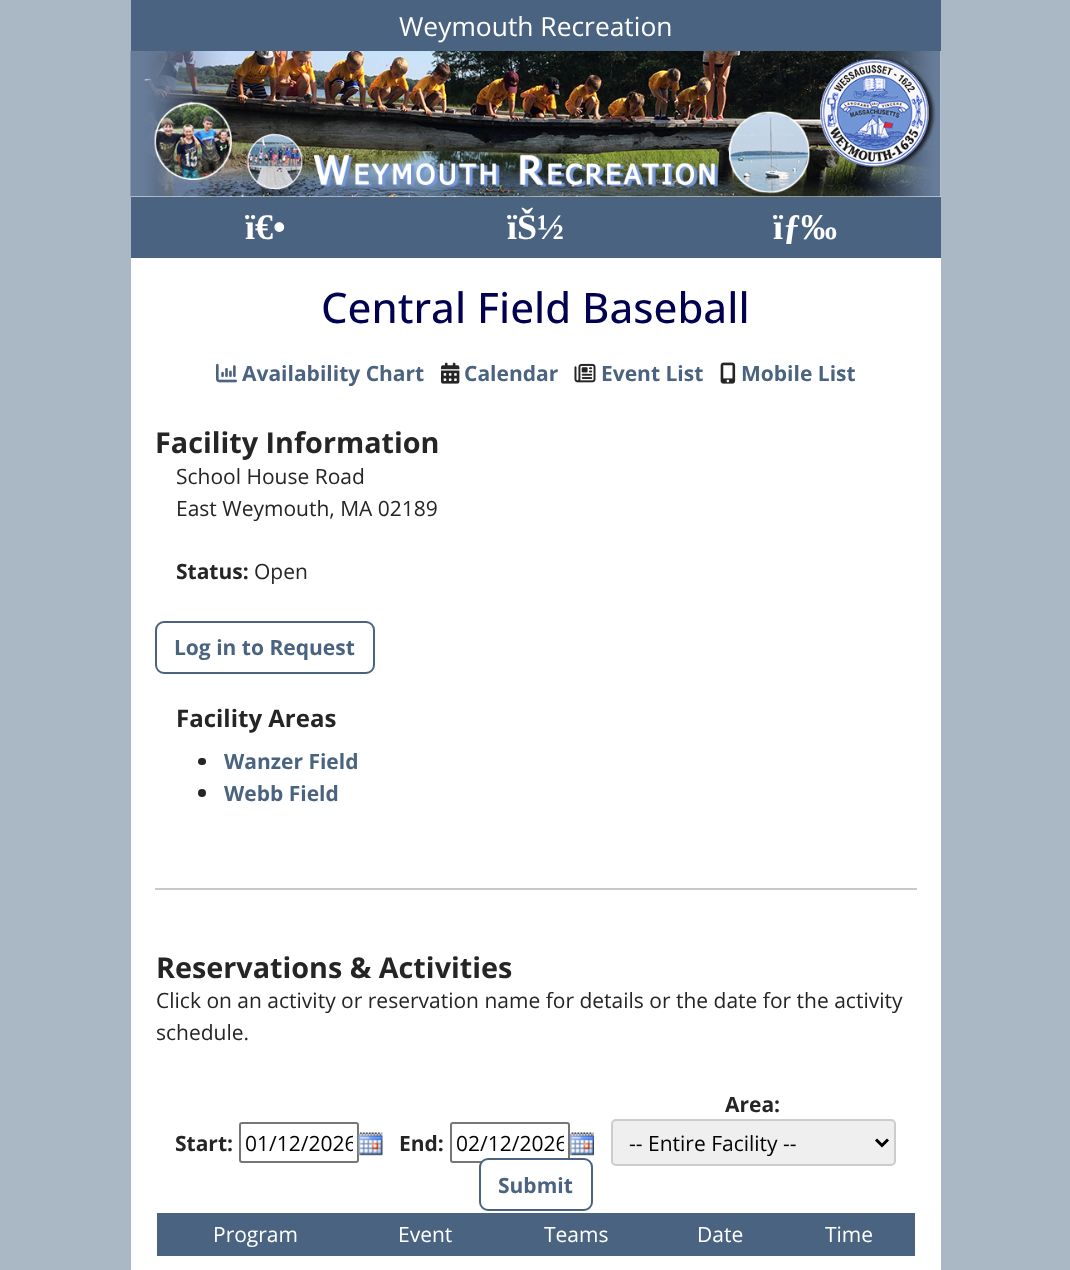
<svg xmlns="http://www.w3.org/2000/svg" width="1070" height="1270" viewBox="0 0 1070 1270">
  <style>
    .t1 { font: 26.4px Open Sans; fill: #fff; }
    .t2 { font: bold 36px Liberation Serif; fill: #fff; }
    .t3 { font: 500 42px Open Sans; fill: #010150; }
    .t4 { font: bold 21px Open Sans; fill: #4a6380; }
    .t5 { font: bold 28.75px Open Sans; fill: #252525; }
    .t6 { font: 21px Open Sans; fill: #252525; }
    .t7 { font: bold 21px Open Sans; fill: #252525; }
    .t8 { font: bold 24px Open Sans; fill: #252525; }
    .t9 { font: 21px Open Sans; fill: #000; }
    .t10 { font: 21px Open Sans; fill: #fff; }
  </style>
  <defs>
    <clipPath id="clip1"><rect x="245" y="1127" width="108" height="31"/></clipPath>
    <clipPath id="clip2"><rect x="456" y="1127" width="108" height="31"/></clipPath>
  </defs>
  <rect width="100%" height="100%" fill="#aab8c5"/>
  <rect x="131" y="51" width="810" height="1219" fill="#fff"/>
  <rect x="131" y="0" width="810" height="51" fill="#4a6380"/>
  <text x="399" y="36" class="t1">Weymouth Recreation</text>
  <image x="130" y="51" width="811" height="146" href="images/1.png"/>
  <rect x="131" y="197" width="810" height="61" fill="#4a6380"/>
  <text x="245" y="239" class="t2">ï€•</text>
  <text x="507" y="239" class="t2">ïŠ½</text>
  <text x="773" y="239" class="t2">ïƒ‰</text>
  <text x="321" y="323" class="t3">Central Field Baseball</text>
  <image x="216" y="363" width="21" height="20" href="images/2.png"/>
  <text x="242" y="381" class="t4">Availability Chart</text>
  <image x="441" y="362" width="19" height="22" href="images/3.png"/>
  <text x="464" y="381" class="t4">Calendar</text>
  <image x="574" y="363" width="22" height="20" href="images/4.png"/>
  <text x="601" y="381" class="t4">Event List</text>
  <image x="720" y="362" width="16" height="22" href="images/5.png"/>
  <text x="741" y="381" class="t4">Mobile List</text>
  <text x="155" y="453" class="t5">Facility Information</text>
  <text x="176" y="484" class="t6">School House Road</text>
  <text x="176" y="516" class="t6">East Weymouth, MA 02189</text>
  <text x="176" y="579" class="t7">Status:</text>
  <text x="254" y="579" class="t6">Open</text>
  <rect x="156" y="622" width="218" height="51" rx="8" fill="none" stroke="#4a6380" stroke-width="2"/>
  <text x="174" y="655" class="t4">Log in to Request</text>
  <text x="176" y="727" class="t8">Facility Areas</text>
  <rect x="198" y="758" width="8" height="7" rx="3.5" fill="#252525"/>
  <text x="224" y="769" class="t4">Wanzer Field</text>
  <circle cx="202" cy="793" r="4" fill="#252525"/>
  <text x="224" y="801" class="t4">Webb Field</text>
  <rect x="155" y="888" width="762" height="2" fill="#c9c9c9"/>
  <text x="156" y="978" class="t5">Reservations &amp; Activities</text>
  <text x="156" y="1008" class="t6">Click on an activity or reservation name for details or the date for the activity</text>
  <text x="156" y="1040" class="t6">schedule.</text>
  <text x="175" y="1151" class="t7">Start:</text>
  <rect x="240" y="1123" width="118" height="39" rx="2" fill="none" stroke="#767676" stroke-width="2"/>
  <g clip-path="url(#clip1)">
    <text x="245" y="1151" class="t9">01/12/2026</text>
  </g>
  <image x="358" y="1132" width="25" height="24" href="images/6.png"/>
  <text x="399" y="1151" class="t7">End:</text>
  <rect x="451" y="1123" width="118" height="39" rx="2" fill="none" stroke="#767676" stroke-width="2"/>
  <g clip-path="url(#clip2)">
    <text x="456" y="1151" class="t9">02/12/2026</text>
  </g>
  <image x="570" y="1132" width="24" height="24" href="images/7.png"/>
  <text x="725" y="1112" class="t7">Area:</text>
  <rect x="612" y="1120" width="283" height="45" rx="4" fill="#efefef" stroke="#ccc" stroke-width="2"/>
  <path d="M876 1139.5L882 1145.5L888 1139.5" fill="none" stroke="#000" stroke-width="3"/>
  <text x="629" y="1151" class="t9">-- Entire Facility --</text>
  <rect x="480" y="1159" width="112" height="51" rx="8" fill="#fff" stroke="#4a6380" stroke-width="2"/>
  <text x="498" y="1193" class="t4">Submit</text>
  <rect x="157" y="1213" width="758" height="43" fill="#4a6380"/>
  <text x="213" y="1242" class="t10">Program</text>
  <text x="398" y="1242" class="t10">Event</text>
  <text x="544" y="1242" class="t10">Teams</text>
  <text x="697" y="1242" class="t10">Date</text>
  <text x="825" y="1242" class="t10">Time</text>
</svg>
